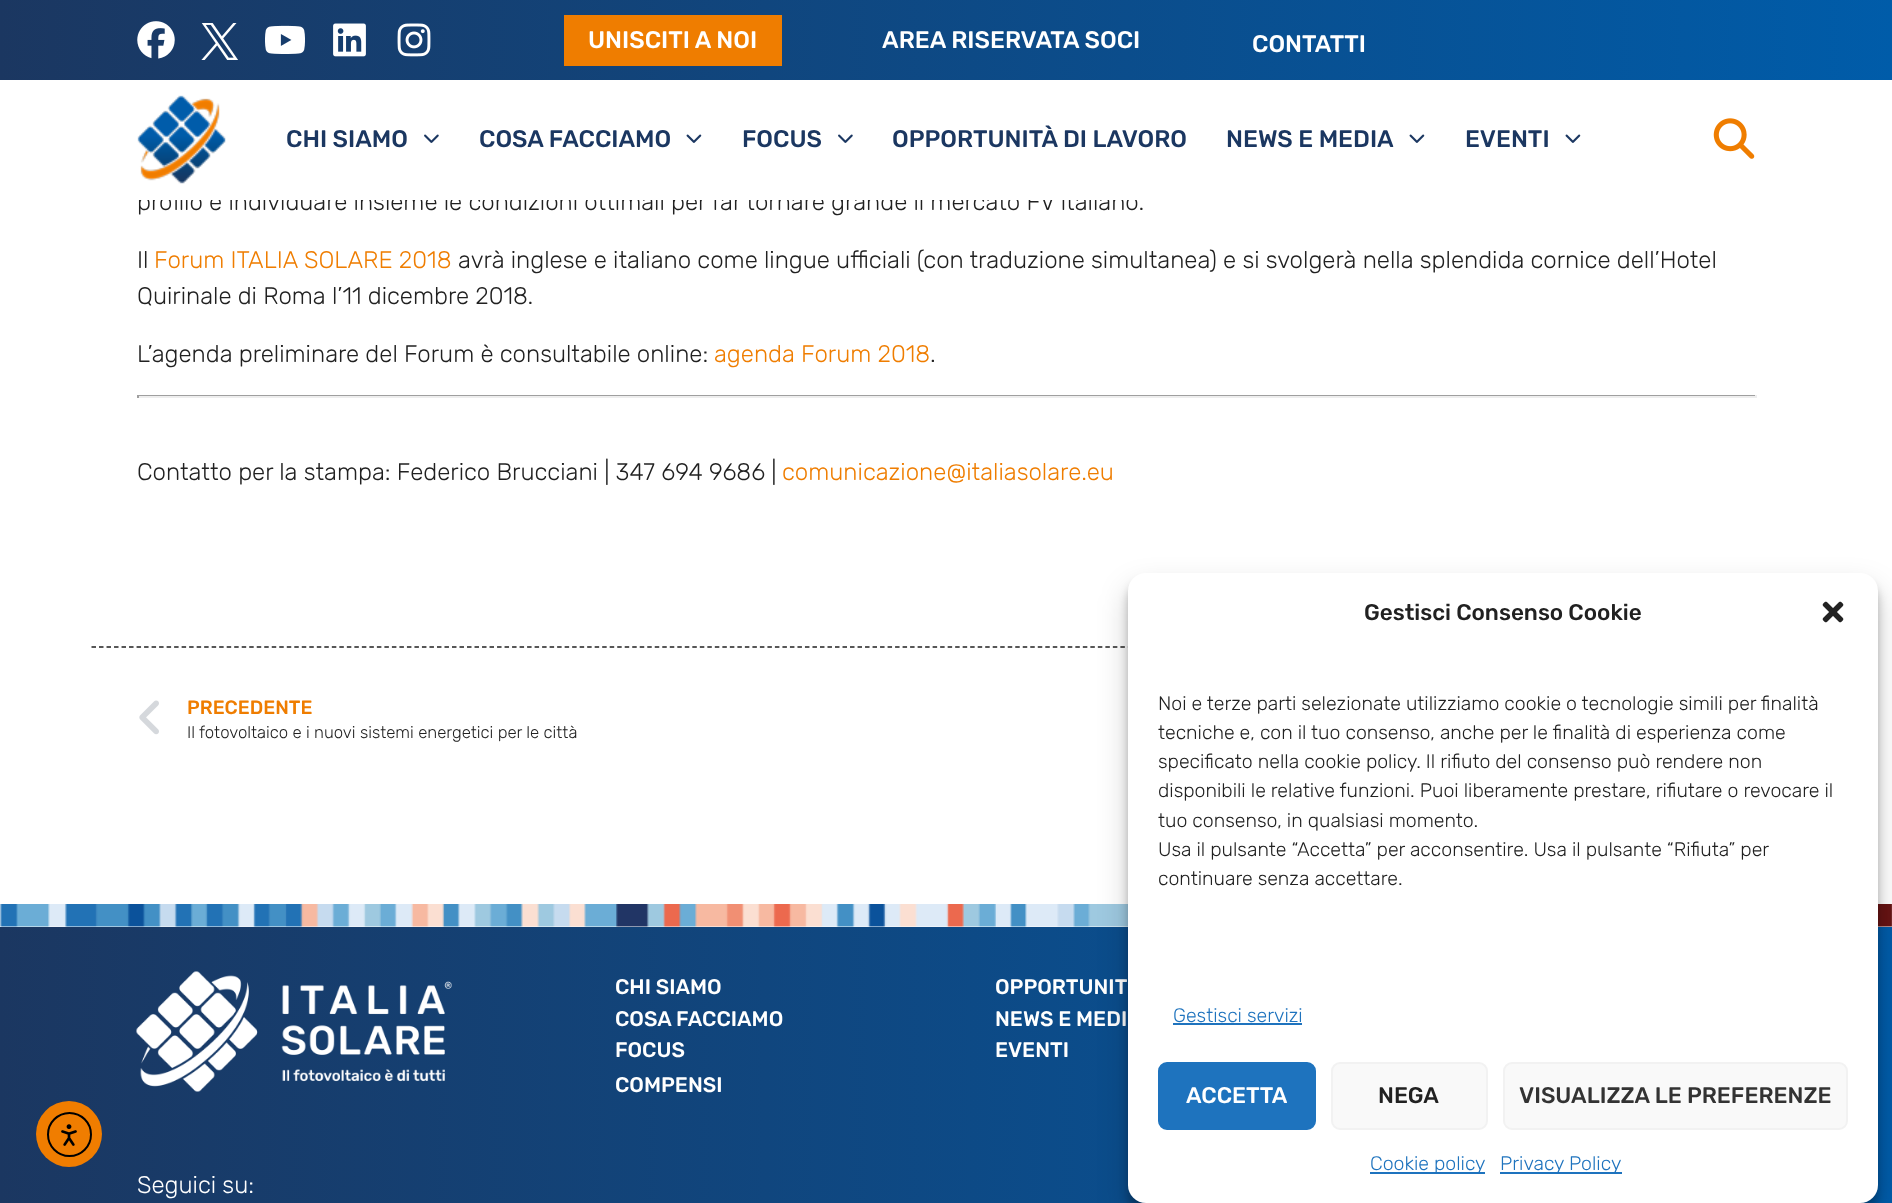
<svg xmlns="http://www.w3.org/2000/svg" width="1892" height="1203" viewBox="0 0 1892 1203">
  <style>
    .t1 { font: 500 24px Rubik; fill: #fff; }
    .t2 { font: 300 24px Rubik; fill: #212121; }
    .t3 { font: 500 24px Rubik; fill: #1b3761; }
    .t4 { font: 300 24px Rubik; fill: #ef7d00; }
    .t5 { font: 500 19.25px Rubik; fill: #ef7d00; }
    .t6 { font: 300 16.8px Rubik; fill: #212121; }
    .t7 { font: 500 21px Rubik; fill: #fff; }
    .t8 { font: 300 24px Rubik; fill: #fff; }
    .t9 { font: 500 22.5px Rubik; fill: #212121; }
    .t10 { font: 300 19.5px Rubik; fill: #212121; }
    .t11 { font: 300 19.5px Rubik; fill: #1e73be; }
    .t12 { font: 500 22.5px Rubik; fill: #fff; }
    .t13 { font: 500 22.5px Rubik; fill: #333; }
  </style>
  <defs>
    <linearGradient id="g1" gradientUnits="userSpaceOnUse" x1="0" y1="41" x2="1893" y2="40"><stop offset="0" stop-color="#1b3761"/><stop offset="1" stop-color="#005ca9"/></linearGradient>
    <linearGradient id="g2" gradientUnits="userSpaceOnUse" x1="0" y1="1153" x2="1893" y2="1153"><stop offset="0" stop-color="#1b3761"/><stop offset="1" stop-color="#005ca9"/></linearGradient>
  </defs>
  <rect width="100%" height="100%" fill="#fff"/>
  <rect x="0" y="0" width="1892" height="80" fill="url(#g1)"/>
  <image x="137" y="21" width="38" height="38" href="images/1.png"/>
  <image x="201" y="23" width="37" height="37" href="images/2.png"/>
  <image x="265" y="25" width="40" height="29" href="images/3.png"/>
  <image x="333" y="23" width="33" height="34" href="images/4.png"/>
  <image x="397" y="23" width="34" height="34" href="images/5.png"/>
  <rect x="564" y="15" width="218" height="51" fill="#ef7d00"/>
  <text x="588" y="48" class="t1">UNISCITI A NOI</text>
  <text x="882" y="48" class="t1">AREA RISERVATA SOCI</text>
  <text x="1252" y="52" class="t1">CONTATTI</text>
  <text x="137" y="210" class="t2">profilo e individuare insieme le condizioni ottimali per far tornare grande il mercato FV italiano.</text>
  <rect x="138" y="192" width="999" height="8" fill="#fff"/>
  <image x="137" y="95" width="89" height="89" href="images/6.png"/>
  <text x="286" y="147" class="t3">CHI SIAMO</text>
  <image x="424" y="134" width="15" height="9" href="images/7.png"/>
  <text x="479" y="147" class="t3">COSA FACCIAMO</text>
  <image x="686" y="134" width="16" height="9" href="images/8.png"/>
  <text x="742" y="147" class="t3">FOCUS</text>
  <image x="838" y="134" width="15" height="9" href="images/7.png"/>
  <text x="892" y="147" class="t3">OPPORTUNITÀ DI LAVORO</text>
  <text x="1226" y="147" class="t3">NEWS E MEDIA</text>
  <image x="1409" y="134" width="16" height="9" href="images/8.png"/>
  <text x="1465" y="147" class="t3">EVENTI</text>
  <image x="1565" y="134" width="16" height="9" href="images/8.png"/>
  <image x="1713" y="118" width="42" height="41" href="images/9.png"/>
  <text x="137" y="268" class="t2">Il</text>
  <text x="154" y="268" class="t4">Forum ITALIA SOLARE 2018</text>
  <text x="458" y="268" class="t2">avrà inglese e italiano come lingue ufficiali (con traduzione simultanea) e si svolgerà nella splendida cornice dell’Hotel</text>
  <text x="137" y="304" class="t2">Quirinale di Roma l’11 dicembre 2018.</text>
  <text x="137" y="362" class="t2">L’agenda preliminare del Forum è consultabile online:</text>
  <text x="714" y="362" class="t4">agenda Forum 2018</text>
  <text x="930" y="362" class="t2">.</text>
  <rect x="137" y="395" width="1620" height="1" fill="#9f9f9f"/>
  <rect x="1755" y="395" width="2" height="3" fill="#eee"/>
  <rect x="137" y="396" width="1620" height="2" fill="#eee"/>
  <rect x="137" y="395" width="2" height="3" fill="#9f9f9f"/>
  <text x="137" y="480" class="t2">Contatto per la stampa: Federico Brucciani | 347 694 9686 |</text>
  <text x="782" y="480" class="t4">comunicazione@italiasolare.eu</text>
  <path d="M91.5 647H1801.5" fill="none" stroke="#212121" stroke-width="1.5" stroke-dasharray="4.5 3.01"/>
  <image x="139" y="700" width="20" height="35" href="images/10.png"/>
  <text x="187" y="714" class="t5">PRECEDENTE</text>
  <text x="187" y="738" class="t6">Il fotovoltaico e i nuovi sistemi energetici per le città</text>
  <rect x="0" y="927" width="1892" height="276" fill="url(#g2)"/>
  <circle cx="69" cy="1134" r="33" fill="#f07d00"/>
  <circle cx="69.5" cy="1134.5" r="21.5" fill="none" stroke="#000" stroke-width="2"/>
  <image x="61" y="1124" width="16" height="22" href="images/11.png"/>
  <image x="0" y="904" width="1892" height="23" href="images/12.png"/>
  <text x="615" y="994" class="t7">CHI SIAMO</text>
  <text x="995" y="994" class="t7">OPPORTUNIT</text>
  <text x="615" y="1026" class="t7">COSA FACCIAMO</text>
  <text x="995" y="1026" class="t7">NEWS E MEDI</text>
  <text x="615" y="1057" class="t7">FOCUS</text>
  <text x="995" y="1057" class="t7">EVENTI</text>
  <text x="615" y="1092" class="t7">COMPENSI</text>
  <image x="136" y="971" width="316" height="121" href="images/13.png"/>
  <text x="137" y="1193" class="t8">Seguici su:</text>
  <rect x="1128" y="582" width="750" height="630" rx="18" fill="#0000003b" filter="blur(4.5px)"/>
  <rect x="1128" y="588" width="750" height="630" rx="18" fill="#00000030" filter="blur(15px)"/>
  <rect x="1128" y="573" width="750" height="630" rx="18" fill="#fff"/>
  <text x="1364" y="620" class="t9">Gestisci Consenso Cookie</text>
  <image x="1822" y="601" width="22" height="22" href="images/14.png"/>
  <text x="1158" y="710" class="t10">Noi e terze parti selezionate utilizziamo cookie o tecnologie simili per finalità</text>
  <text x="1158" y="739" class="t10">tecniche e, con il tuo consenso, anche per le finalità di esperienza come</text>
  <text x="1158" y="768" class="t10">specificato nella cookie policy. Il rifiuto del consenso può rendere non</text>
  <text x="1158" y="797" class="t10">disponibili le relative funzioni. Puoi liberamente prestare, rifiutare o revocare il</text>
  <text x="1158" y="827" class="t10">tuo consenso, in qualsiasi momento.</text>
  <text x="1158" y="856" class="t10">Usa il pulsante “Accetta” per acconsentire. Usa il pulsante “Rifiuta” per</text>
  <text x="1158" y="885" class="t10">continuare senza accettare.</text>
  <text x="1173" y="1022" class="t11">Gestisci servizi</text>
  <rect x="1173" y="1023" width="129" height="2" fill="#1e73be"/>
  <rect x="1159" y="1063" width="156" height="66" rx="8" fill="#1e73be" stroke="#1e73be" stroke-width="2"/>
  <text x="1186" y="1103" class="t12">ACCETTA</text>
  <rect x="1332" y="1063" width="155" height="66" rx="8" fill="#f9f9f9" stroke="#f2f2f2" stroke-width="2"/>
  <text x="1378" y="1103" class="t9">NEGA</text>
  <rect x="1504" y="1063" width="343" height="66" rx="8" fill="#f9f9f9" stroke="#f2f2f2" stroke-width="2"/>
  <text x="1519" y="1103" class="t13">VISUALIZZA LE PREFERENZE</text>
  <rect x="1370" y="1172" width="115" height="2" fill="#1e73be"/>
  <text x="1370" y="1170" class="t11">Cookie policy</text>
  <rect x="1500" y="1172" width="122" height="2" fill="#1e73be"/>
  <text x="1500" y="1170" class="t11">Privacy Policy</text>
</svg>
